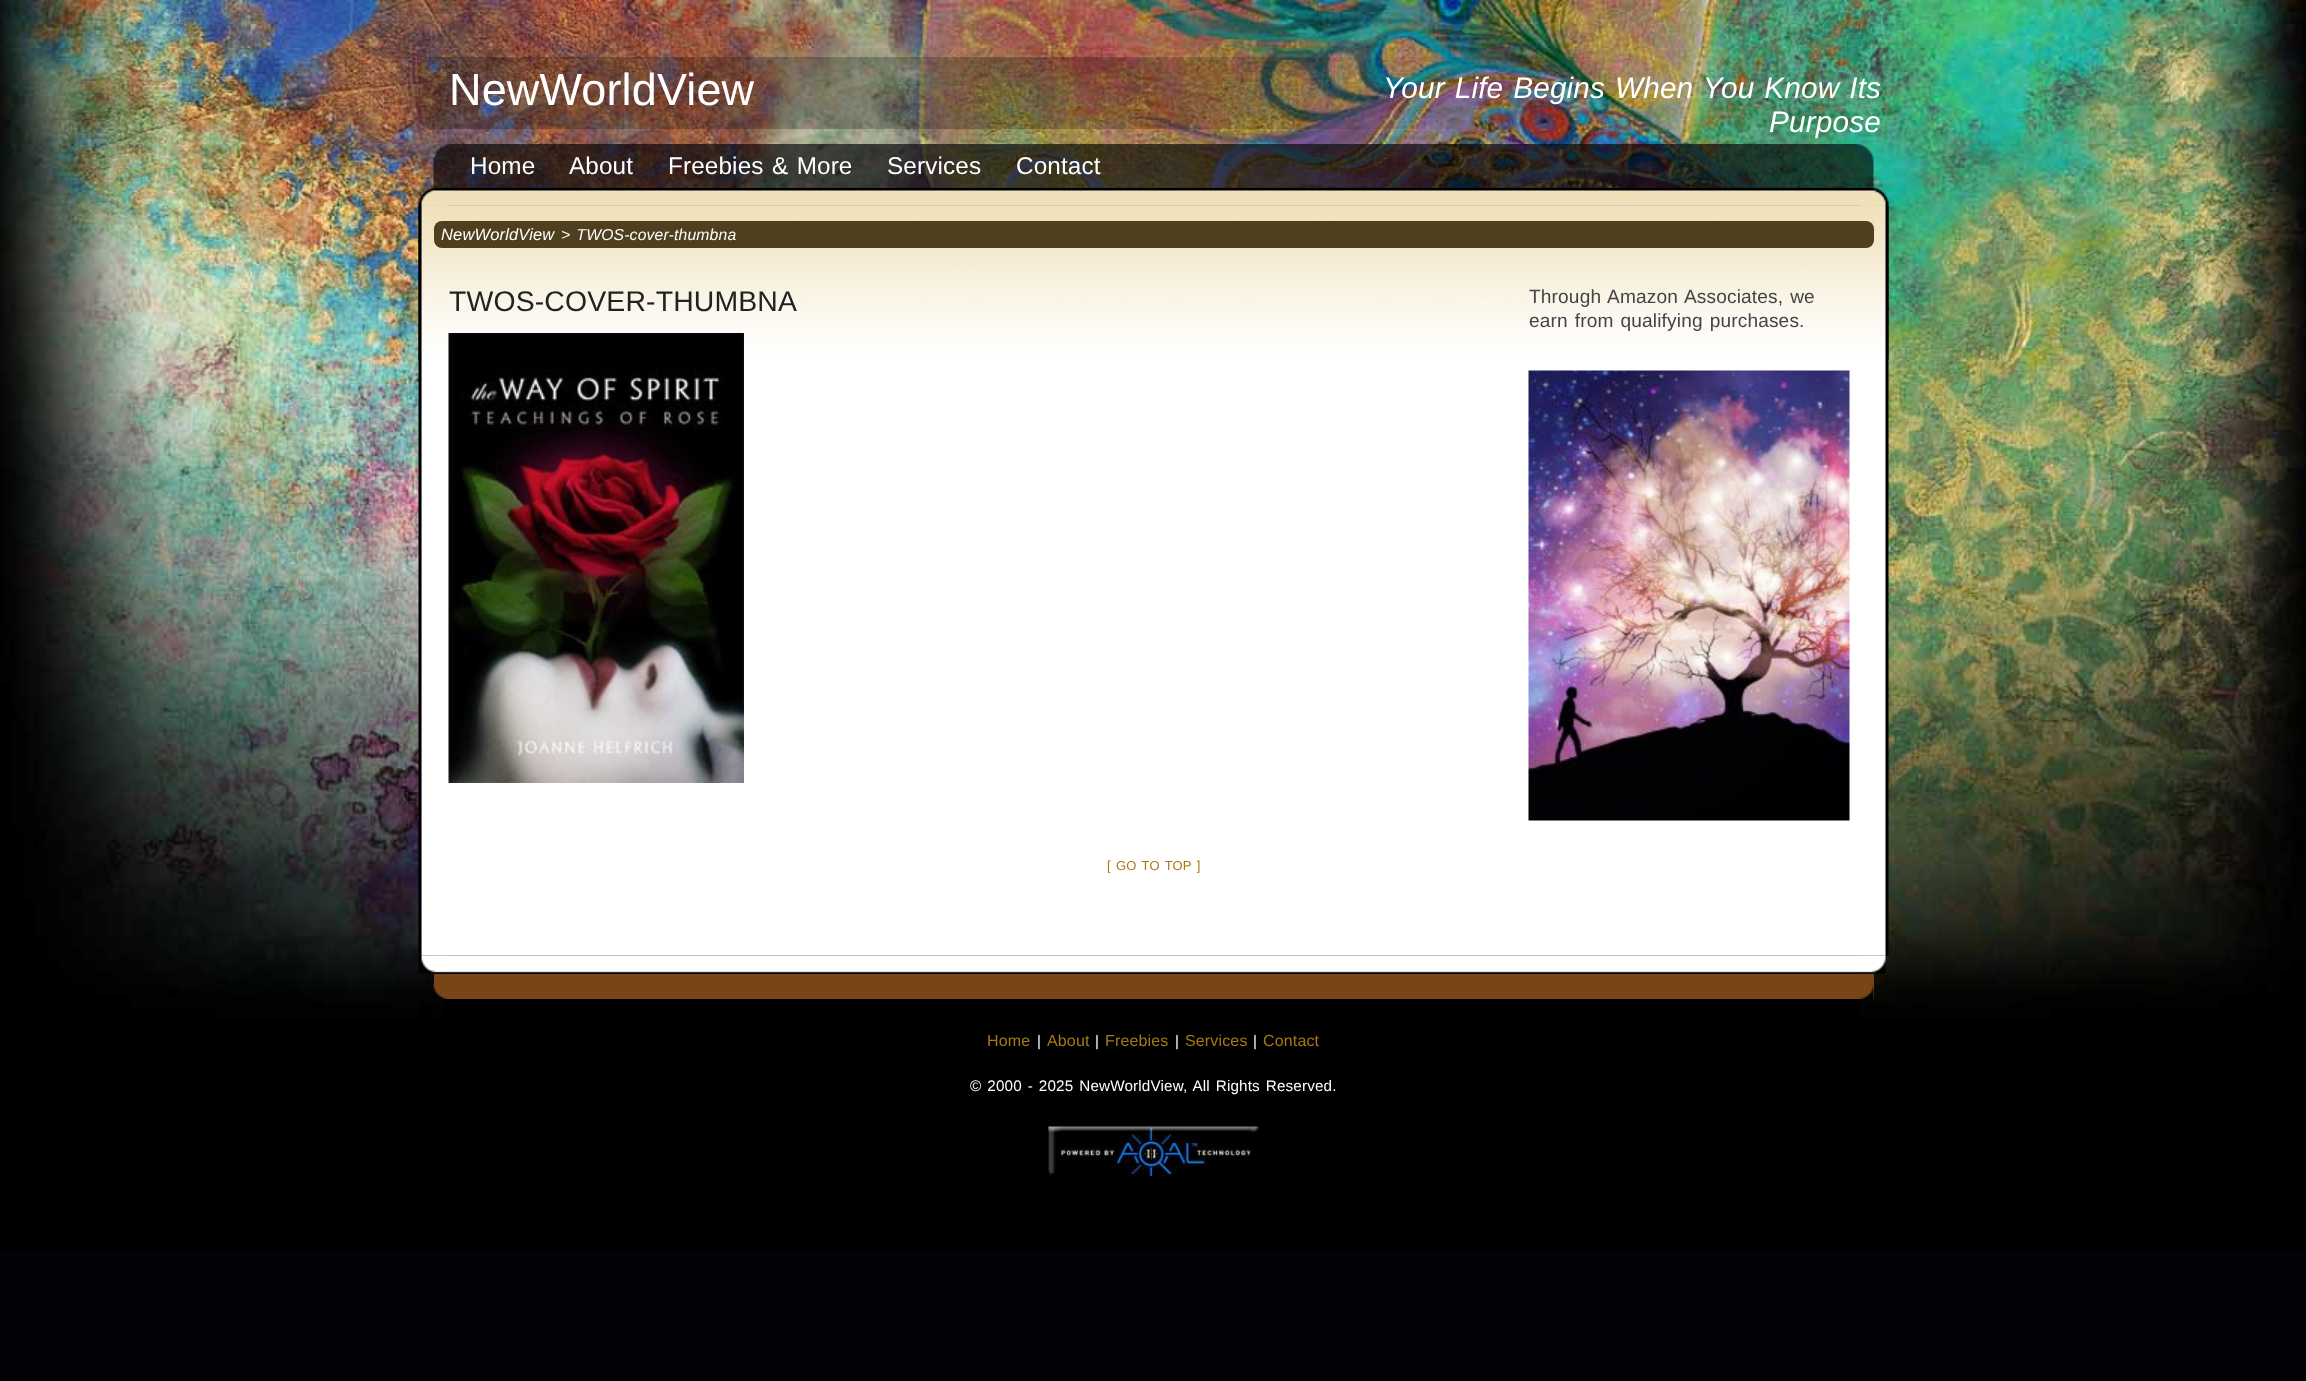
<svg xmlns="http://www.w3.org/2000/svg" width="2306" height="1381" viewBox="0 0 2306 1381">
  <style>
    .t1 { font: 45px Liberation Sans; letter-spacing: 0.15px; fill: #fff; }
    .t2 { font: italic 29.75px Liberation Sans; letter-spacing: 0.15px; fill: #fff; }
    .t3 { font: 24.25px Liberation Sans; letter-spacing: 0.15px; fill: #fff; }
    .t4 { font: italic 16.5px Liberation Sans; letter-spacing: 0.15px; fill: #fff; }
    .t5 { font: italic 15.75px Liberation Sans; letter-spacing: 0.15px; fill: #fff; }
    .t6 { font: 28.4px Liberation Sans; letter-spacing: 0.15px; fill: #222; }
    .t7 { font: 19.1px Liberation Sans; letter-spacing: 0.15px; fill: #444; }
    .t8 { font: 13px Liberation Sans; letter-spacing: 0.15px; fill: #a67a11; }
    .t9 { font: 16px Liberation Sans; letter-spacing: 0.15px; fill: #a67a11; }
    .t10 { font: 15.25px Liberation Sans; letter-spacing: 0.15px; fill: #fff; }
  </style>
  <rect width="100%" height="100%" fill="#010205"/>
  <image x="0" y="0" width="2306" height="1251" href="images/1.png"/>
  <image x="418" y="57" width="1149" height="72" href="images/2.png"/>
  <text x="449" y="105" class="t1">NewWorldView</text>
  <text x="1383" y="98" word-spacing="1.5" class="t2">Your Life Begins When You Know Its</text>
  <text x="1769" y="132" class="t2">Purpose</text>
  <image x="433" y="144" width="1441" height="44" href="images/3.png"/>
  <text x="470" y="174" class="t3">Home</text>
  <text x="569" y="174" class="t3">About</text>
  <text x="668" y="174" word-spacing="1.5" class="t3">Freebies &amp; More</text>
  <text x="887" y="174" class="t3">Services</text>
  <text x="1016" y="174" class="t3">Contact</text>
  <image x="418" y="187" width="1471" height="19" href="images/4.png"/>
  <image x="418" y="205" width="1471" height="751" href="images/5.png"/>
  <image x="418" y="205" width="1471" height="155" href="images/6.png"/>
  <rect x="434" y="221" width="1440" height="27" rx="8" fill="#4e401f"/>
  <text x="441" y="240" class="t4">NewWorldView</text>
  <text x="561" y="240" word-spacing="1.5" class="t5">&gt; TWOS-cover-thumbna</text>
  <text x="449" y="311" class="t6">TWOS-COVER-THUMBNA</text>
  <image x="448" y="333" width="296" height="450" href="images/7.png"/>
  <text x="1529" y="303" word-spacing="1.5" class="t7">Through Amazon Associates, we</text>
  <text x="1529" y="327" word-spacing="1.5" class="t7">earn from qualifying purchases.</text>
  <image x="1528" y="370" width="322" height="451" href="images/8.png"/>
  <text x="1107" y="870" word-spacing="1.5" class="t8">[ GO TO TOP ]</text>
  <image x="418" y="955" width="1468" height="19" href="images/9.png"/>
  <rect x="434" y="974" width="1440" height="25" fill="#794417"/>
  <image x="433" y="984" width="1441" height="15" href="images/10.png"/>
  <text x="987" y="1046" class="t9">Home</text>
  <text x="1037" y="1046" class="t10">|</text>
  <text x="1047" y="1046" class="t9">About</text>
  <text x="1095" y="1046" class="t10">|</text>
  <text x="1105" y="1046" class="t9">Freebies</text>
  <text x="1175" y="1046" class="t10">|</text>
  <text x="1185" y="1046" class="t9">Services</text>
  <text x="1253" y="1046" class="t10">|</text>
  <text x="1263" y="1046" class="t9">Contact</text>
  <text x="970" y="1091" word-spacing="1.5" class="t10">© 2000 - 2025 NewWorldView, All Rights Reserved.</text>
  <image x="1048" y="1126" width="211" height="50" href="images/11.png"/>
</svg>
